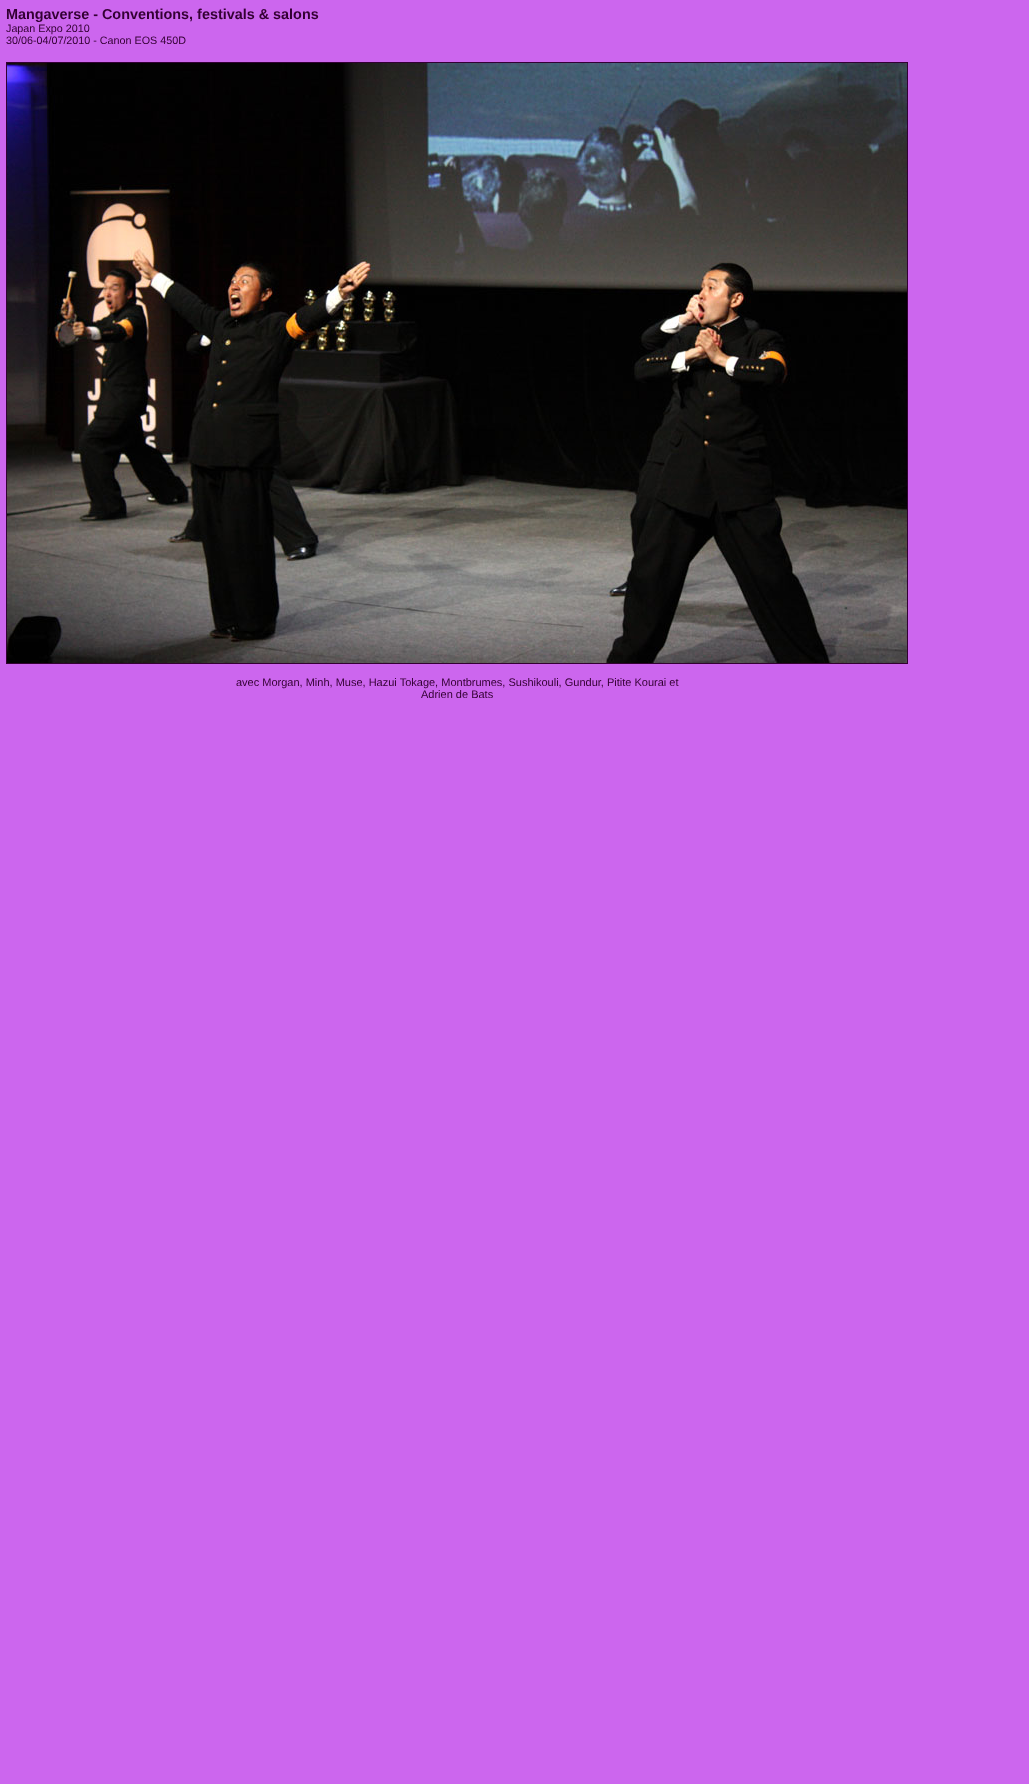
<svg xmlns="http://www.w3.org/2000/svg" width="1029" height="1784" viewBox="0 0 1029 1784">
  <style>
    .t1 { font: bold 14.4px Liberation Sans; fill: #303; }
    .t2 { font: 10.75px Liberation Sans; fill: #303; }
    .t3 { font: 11px Liberation Sans; fill: #303; }
  </style>
  <rect width="100%" height="100%" fill="#c6e"/>
  <text x="6" y="19" class="t1">Mangaverse - Conventions, festivals &amp; salons</text>
  <text x="6" y="32" class="t2">Japan Expo 2010</text>
  <text x="6" y="44" class="t2">30/06-04/07/2010 - Canon EOS 450D</text>
  <rect x="6.5" y="62.5" width="901" height="601" fill="none" stroke="#303"/>
  <image x="7" y="63" width="900" height="600" href="images/1.png"/>
  <text x="236" y="686" class="t3">avec Morgan, Minh, Muse, Hazui Tokage, Montbrumes, Sushikouli, Gundur, Pitite Kourai et</text>
  <text x="421" y="698" class="t3">Adrien de Bats</text>
</svg>
